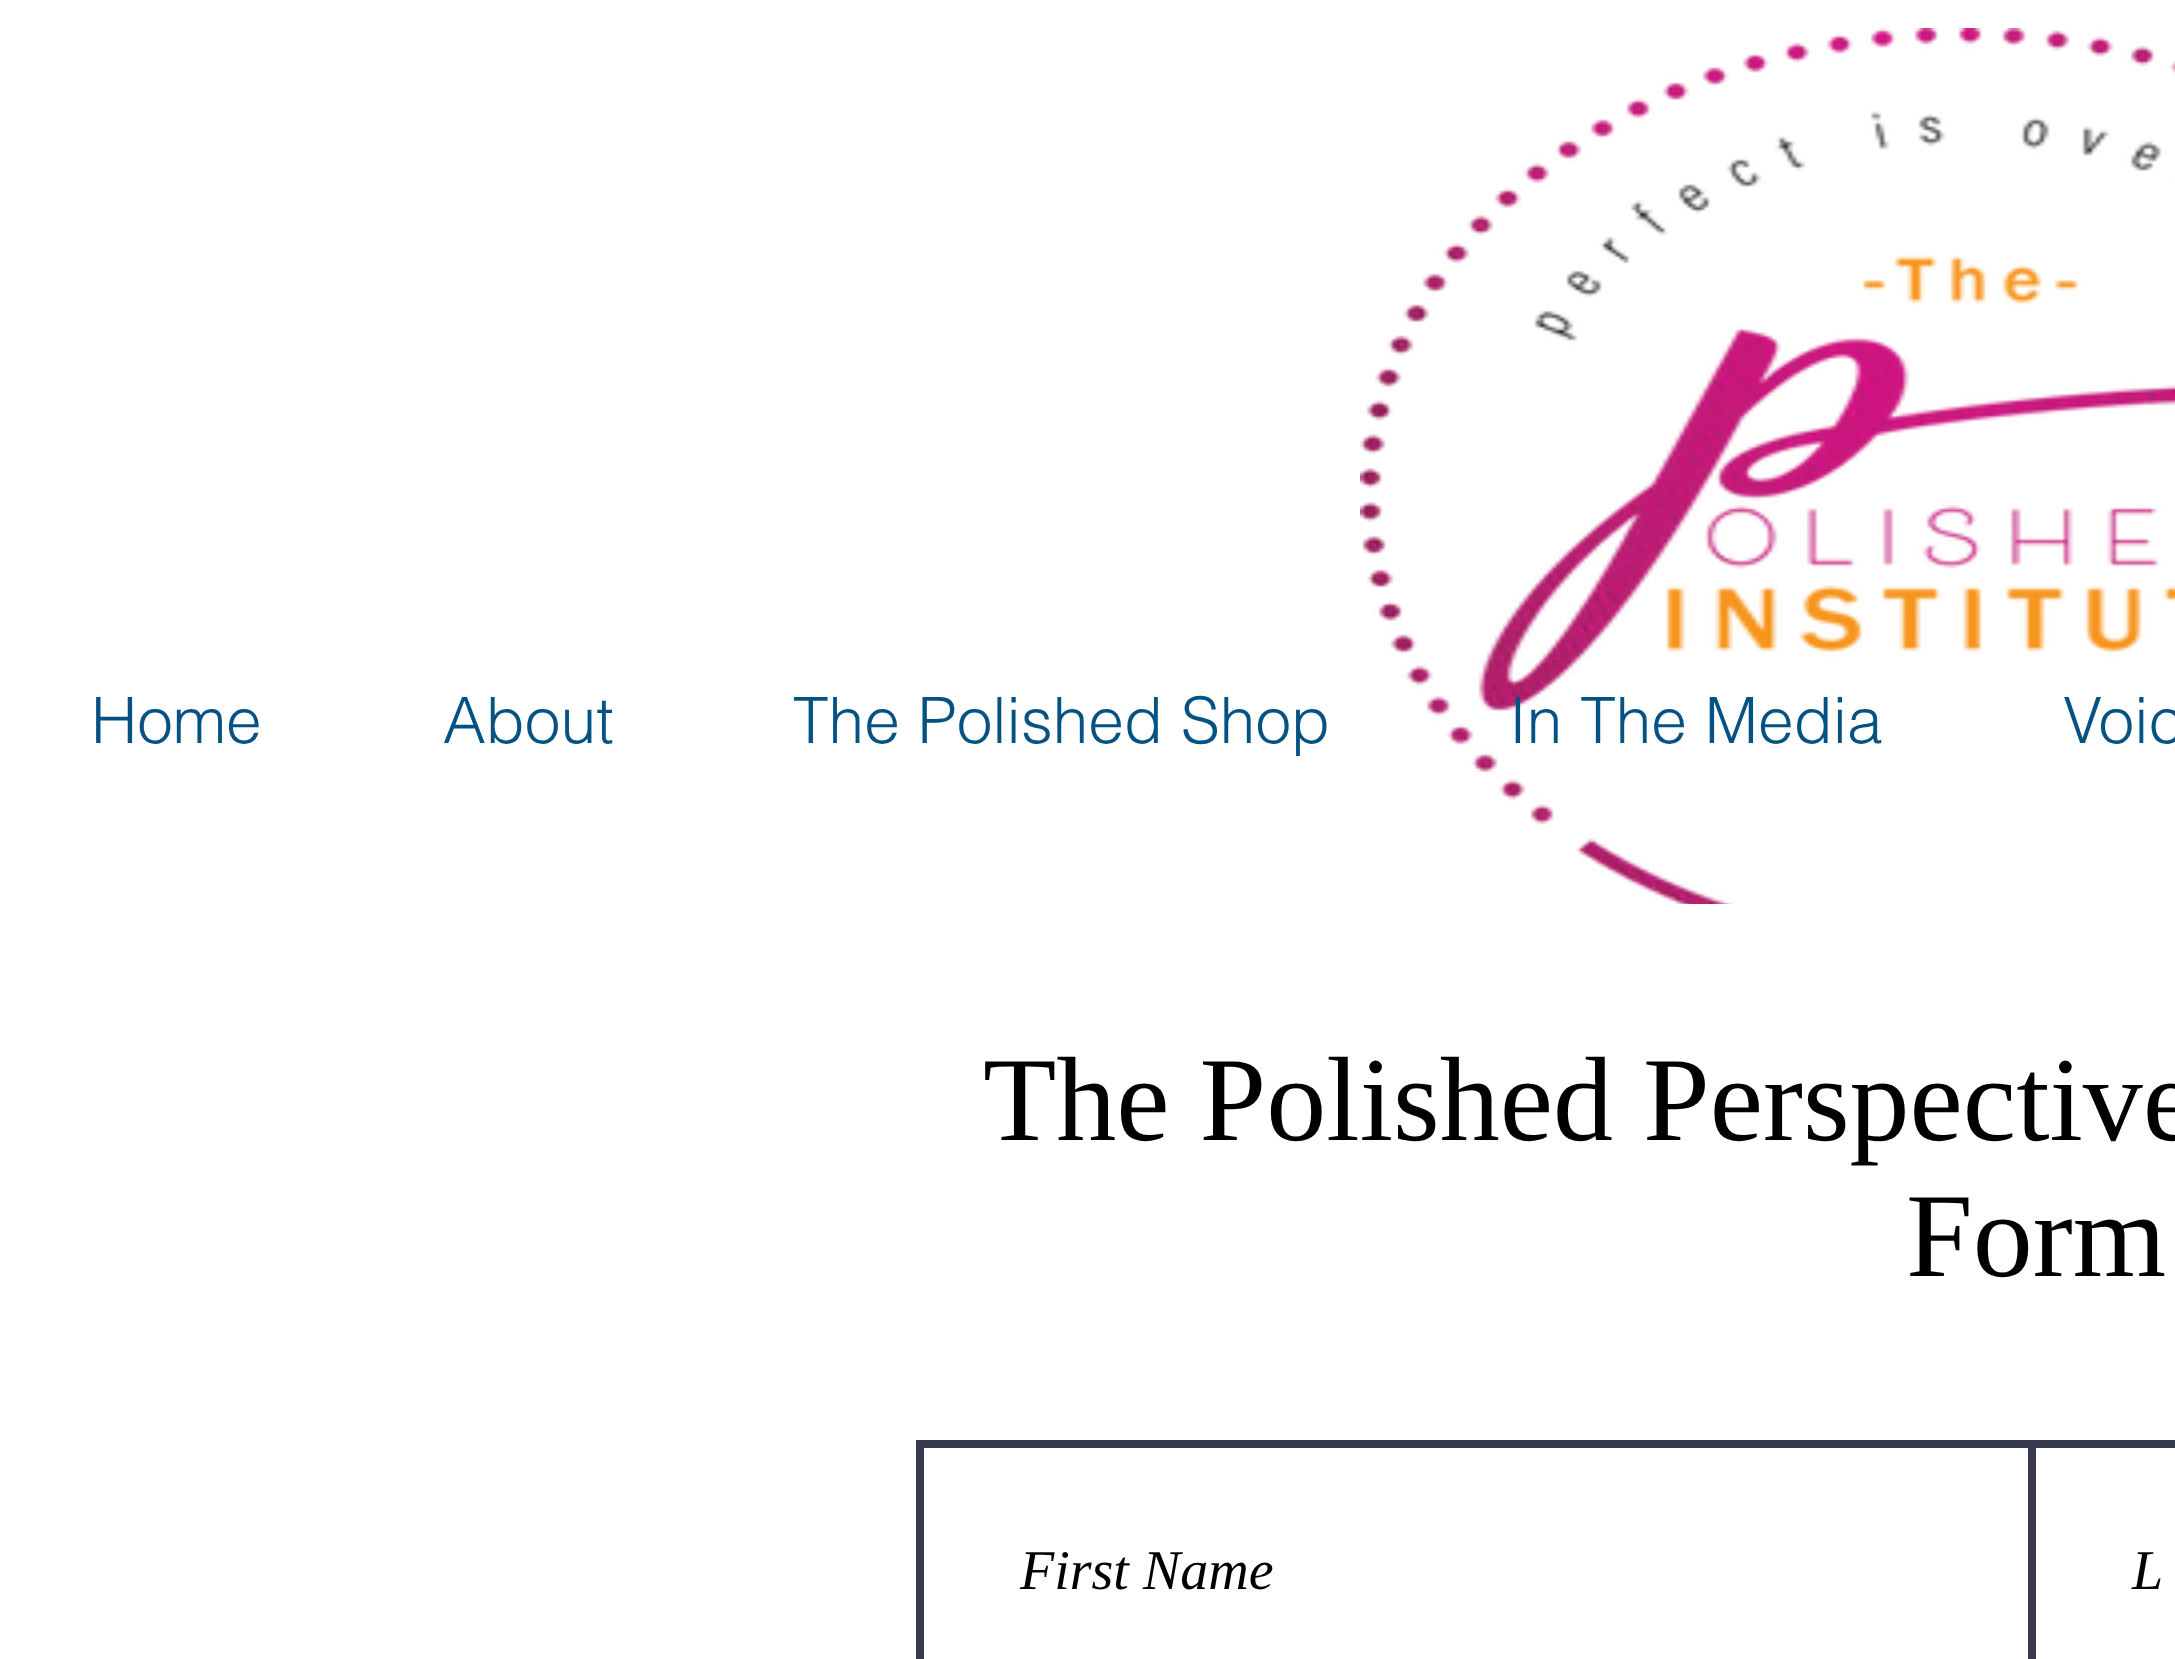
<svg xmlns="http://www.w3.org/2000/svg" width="2175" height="1659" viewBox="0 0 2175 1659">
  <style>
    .t1 { font: 300 64px helvetica; fill: #045184; }
    .t2 { font: 120px Liberation Serif; fill: #000; }
    .t3 { font: italic 56px Liberation Serif; fill: #000; }
  </style>
  <rect width="100%" height="100%" fill="#fff"/>
  <image x="1360" y="28" width="815" height="876" href="images/1.png"/>
  <text x="91" y="743" class="t1">Home</text>
  <text x="443" y="743" class="t1">About</text>
  <text x="793" y="743" class="t1">The Polished Shop</text>
  <text x="1509" y="743" class="t1">In The Media</text>
  <text x="2063" y="743" class="t1">Voic</text>
  <text x="983" y="1140" class="t2">The Polished Perspective</text>
  <text x="1906" y="1276" class="t2">Form</text>
  <rect x="920" y="1444" width="1112" height="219" fill="none" stroke="#373b4d" stroke-width="8"/>
  <text x="1020" y="1589" class="t3">First Name</text>
  <rect x="2032" y="1444" width="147" height="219" fill="none" stroke="#373b4d" stroke-width="8"/>
  <text x="2132" y="1589" class="t3">L</text>
</svg>
